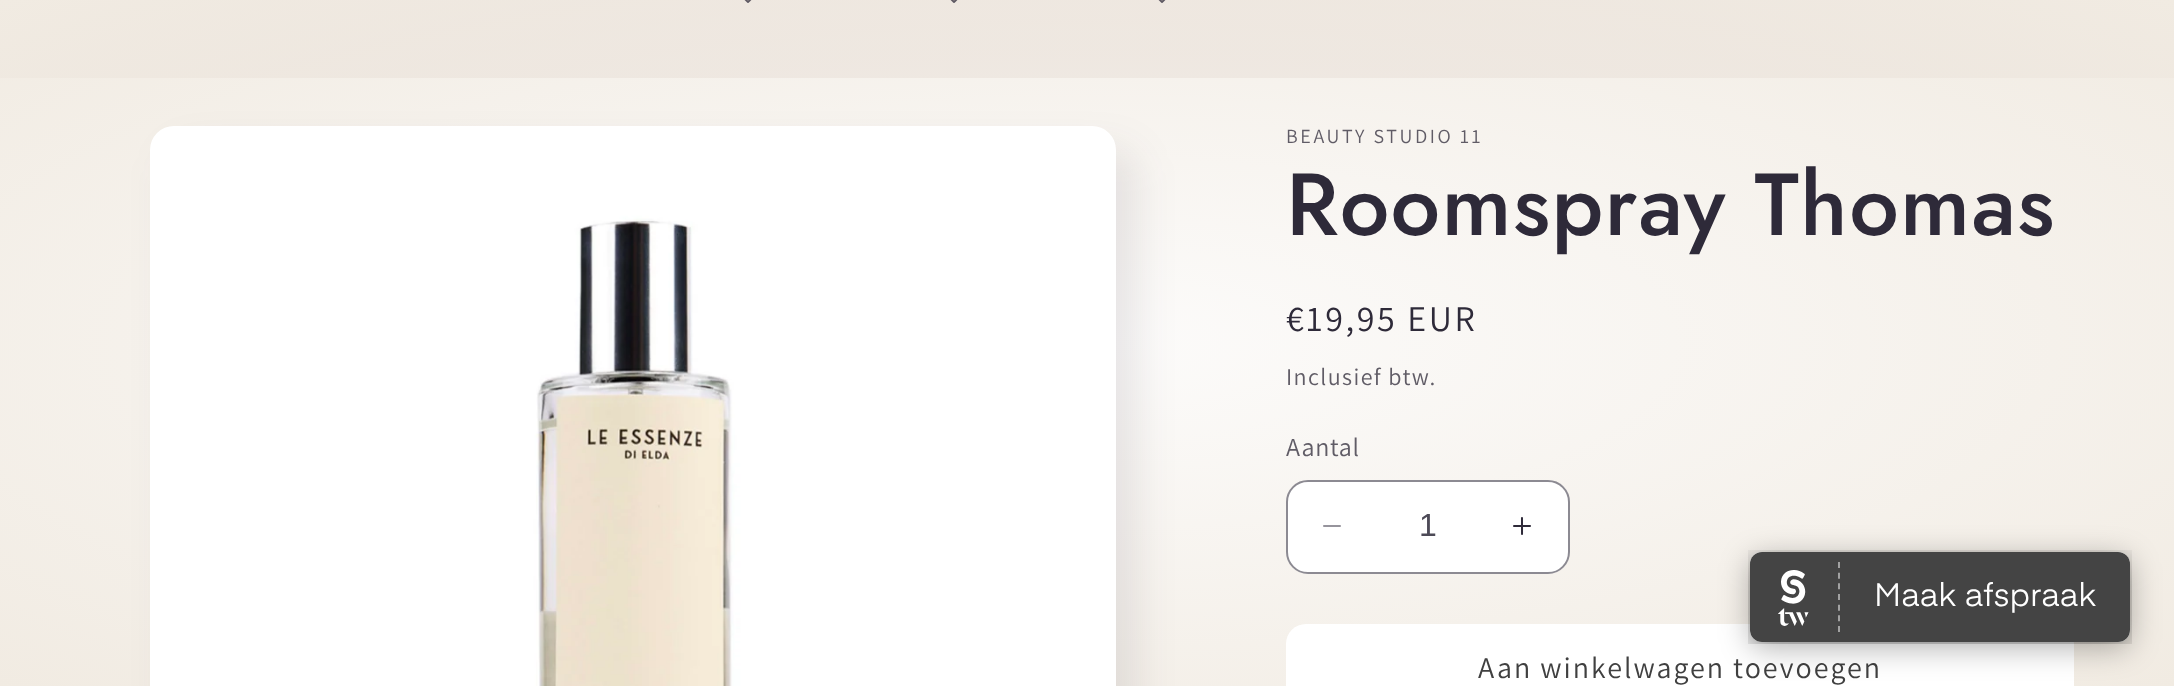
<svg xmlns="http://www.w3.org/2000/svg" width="2174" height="686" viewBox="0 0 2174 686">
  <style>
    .t1 { font: 20px Assistant; letter-spacing: 2.6px; fill: #605c66; }
    .t2 { font: 500 88px Jost; letter-spacing: 1.3px; fill: #2e2a39; }
    .t3 { font: 36px Assistant; letter-spacing: 2.6px; fill: #2e2a39; }
    .t4 { font: 24px Assistant; letter-spacing: 1.4px; fill: #605c66; }
    .t5 { font: 26px Assistant; letter-spacing: 0.75px; fill: #605c66; }
    .t6 { font: 32px Liberation Sans; fill: #4d4a57; }
    .t7 { font: 30px Assistant; letter-spacing: 2px; fill: #404040; }
  </style>
  <defs>
    <radialGradient id="g1" gradientUnits="userSpaceOnUse" cx="0" cy="0" r="1" gradientTransform="matrix(1537 0 0 485 1087 343)"><stop offset="0.01" stop-color="#fcfbfa"/><stop offset="1" stop-color="#f1ebe2"/></radialGradient>
    <radialGradient id="g2" gradientUnits="userSpaceOnUse" cx="0" cy="0" r="1" gradientTransform="matrix(1537 0 0 485 1087 343)"><stop offset="0.01" stop-color="#e1d6d1" stop-opacity="0.13"/><stop offset="1" stop-color="#f1ebe2"/></radialGradient>
  </defs>
  <rect width="100%" height="100%" fill="#fff"/>
  <rect x="0" y="0" width="2174" height="686" fill="url(#g1)"/>
  <rect x="0" y="0" width="2174" height="78" fill="url(#g2)"/>
  <image x="744" y="0" width="8" height="3" href="images/1.png"/>
  <image x="950" y="0" width="8" height="3" href="images/2.png"/>
  <image x="1158" y="0" width="8" height="3" href="images/3.png"/>
  <rect x="170" y="150" width="966" height="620" rx="24" fill="#2e2a391a" filter="blur(20px)"/>
  <image x="150" y="126" width="966" height="560" href="images/4.png"/>
  <text x="1286" y="143" class="t1">BEAUTY STUDIO 11</text>
  <text x="1286" y="235" class="t2">Roomspray Thomas</text>
  <text x="1286" y="331" class="t3">€19,95 EUR</text>
  <text x="1286" y="385" class="t4">Inclusief btw.</text>
  <text x="1286" y="456" class="t5">Aantal</text>
  <rect x="1286" y="480" width="284" height="94" rx="22" fill="#fff"/>
  <image x="1323" y="525" width="18" height="2" href="images/5.png"/>
  <image x="1513" y="517" width="18" height="18" href="images/6.png"/>
  <rect x="1287" y="481" width="282" height="92" rx="21" fill="none" stroke="#2e2a398c" stroke-width="2"/>
  <text x="1419" y="536" class="t6">1</text>
  <rect x="1286" y="624" width="788" height="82" rx="20" fill="#fff"/>
  <text x="1478" y="678" class="t7">Aan winkelwagen toevoegen</text>
  <rect x="1750" y="558" width="380" height="90" rx="12" fill="#0000004d" filter="blur(15px)"/>
  <image x="1748" y="550" width="384" height="94" href="images/7.png"/>
</svg>
